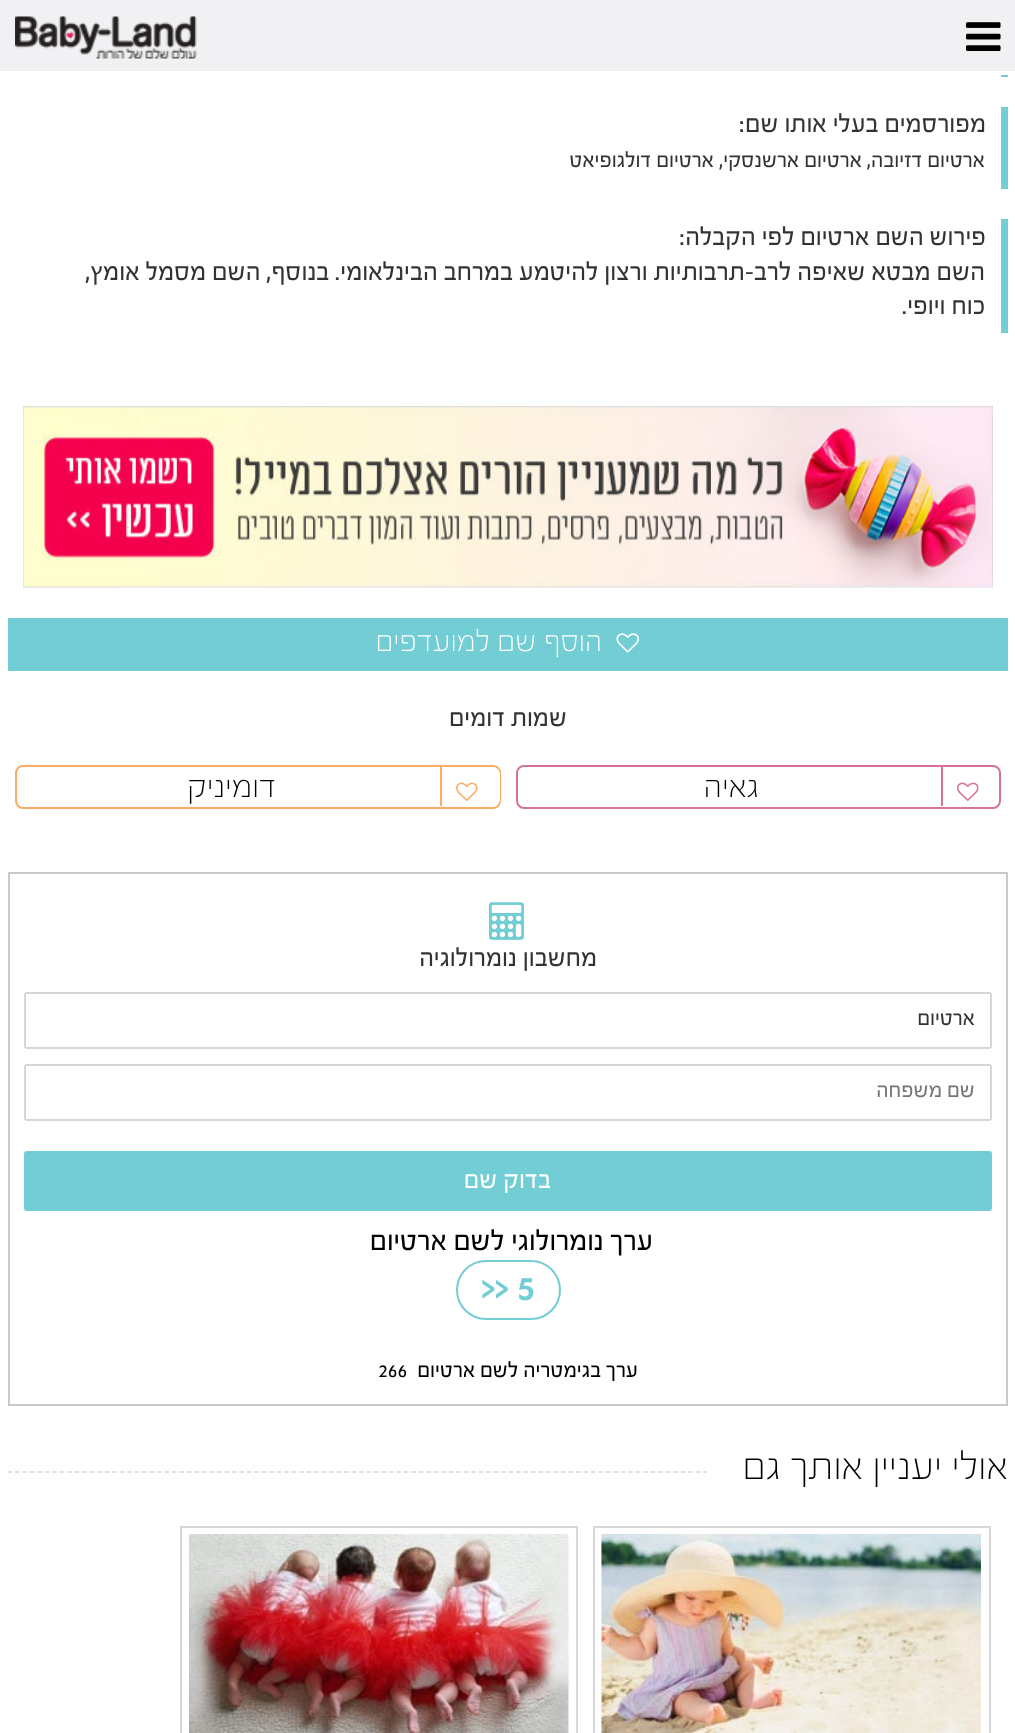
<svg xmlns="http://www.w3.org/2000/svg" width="1015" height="1733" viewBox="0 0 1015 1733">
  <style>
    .t1 { font: 26.9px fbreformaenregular; direction: rtl; fill: #333; }
    .t2 { font: 22.5px fbreformaenregular; direction: rtl; fill: #333; }
    .t3 { font: 27px fbreformaenregular; direction: rtl; fill: #333; }
    .t4 { font: 31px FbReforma; direction: rtl; fill: #fff; }
    .t5 { font: 33.5px FbReforma; direction: rtl; fill: #000; }
    .t6 { font: 22.5px fbreformaenregular; direction: rtl; fill: #757575; }
    .t7 { font: 27px fbreformaenregular; direction: rtl; fill: #fff; }
    .t8 { font: 30px fbreformaenregular; direction: rtl; fill: #000; }
    .t9 { font: bold 40.25px fbreformaenregular; fill: #73cdd5; }
    .t10 { font: 22.5px fbreformaenregular; direction: rtl; fill: #000; }
    .t11 { font: 22.5px fbreformaenregular; fill: #000; }
    .t12 { font: 40.25px FbReforma; direction: rtl; fill: #000; }
  </style>
  <rect width="100%" height="100%" fill="#fff"/>
  <rect x="0" y="0" width="1015" height="71" fill="#f1f1f3"/>
  <image x="15" y="16" width="182" height="43" href="images/1.png"/>
  <image x="966" y="22" width="35" height="29" href="images/2.png"/>
  <rect x="1001" y="75" width="7" height="2" fill="#73cdd5"/>
  <rect x="1001" y="107" width="7" height="82" fill="#73cdd5"/>
  <text x="986" y="132" class="t1">מפורסמים בעלי אותו שם:</text>
  <text x="985" y="167" class="t2">ארטיום דזיובה,</text>
  <text x="862" y="167" class="t2">ארטיום ארשנסקי,</text>
  <text x="714" y="167" class="t2">ארטיום דולגופיאט</text>
  <rect x="1001" y="219" width="7" height="114" fill="#73cdd5"/>
  <text x="986" y="245" class="t1">פירוש השם ארטיום לפי הקבלה:</text>
  <text x="985" y="280" class="t3">השם מבטא שאיפה לרב-תרבותיות ורצון להיטמע במרחב הבינלאומי. בנוסף, השם מסמל אומץ,</text>
  <text x="985" y="314" class="t3">כוח ויופי.</text>
  <image x="23" y="406" width="970" height="182" href="images/3.png"/>
  <rect x="8" y="618" width="1000" height="53" fill="#73cdd5"/>
  <image x="616" y="633" width="23" height="20" href="images/4.png"/>
  <text x="602" y="651" class="t4">הוסף שם למועדפים</text>
  <text x="567" y="726" class="t1">שמות דומים</text>
  <rect x="517" y="766" width="483" height="42" rx="7" fill="none" stroke="#d6719b" stroke-width="2"/>
  <rect x="518" y="767" width="481" height="40" rx="8" fill="#fff"/>
  <rect x="941" y="765" width="2" height="41" fill="#d6719b"/>
  <image x="957" y="782" width="22" height="19" href="images/5.png"/>
  <text x="759" y="797" class="t5">גאיה</text>
  <rect x="16" y="766" width="484" height="42" rx="7" fill="none" stroke="#f7ad63" stroke-width="2"/>
  <rect x="17" y="767" width="483" height="40" rx="8" fill="#fff"/>
  <rect x="440" y="765" width="2" height="41" fill="#f7ad63"/>
  <image x="456" y="782" width="22" height="19" href="images/6.png"/>
  <text x="276" y="797" class="t5">דומיניק</text>
  <rect x="9" y="873" width="998" height="532" fill="none" stroke="#c9c9c9" stroke-width="2"/>
  <image x="489" y="902" width="35" height="38" href="images/7.png"/>
  <text x="597" y="966" class="t1">מחשבון נומרולוגיה</text>
  <rect x="25" y="993" width="966" height="55" rx="2" fill="none" stroke="#d6d6d6" stroke-width="2"/>
  <text x="975" y="1025" class="t2">ארטיום</text>
  <rect x="25" y="1065" width="966" height="55" rx="2" fill="none" stroke="#d6d6d6" stroke-width="2"/>
  <text x="975" y="1097" class="t6">שם משפחה</text>
  <rect x="24" y="1151" width="968" height="60" rx="3" fill="#73cdd5"/>
  <text x="551" y="1188" class="t7">בדוק שם</text>
  <text x="653" y="1250" class="t8">ערך נומרולוגי לשם ארטיום</text>
  <rect x="457" y="1261" width="103" height="58" rx="29" fill="none" stroke="#73cdd5" stroke-width="2"/>
  <text x="517" y="1300" class="t9">5</text>
  <text x="481" y="1300" class="t9">&gt;&gt;</text>
  <text x="638" y="1377" class="t10">ערך בגימטריה לשם ארטיום</text>
  <text x="378" y="1377" class="t11">266</text>
  <path d="M7.5 1472H1008" fill="none" stroke="#d7d7d7" stroke-width="1.5" stroke-dasharray="4.5 2.98"/>
  <rect x="707" y="1471" width="300" height="2" fill="#fff"/>
  <text x="1008" y="1479" class="t12">אולי יעניין אותך גם</text>
  <rect x="593" y="1526" width="397" height="2" fill="#d7d7d7"/>
  <rect x="989" y="1526" width="2" height="207" fill="#d7d7d7"/>
  <rect x="593" y="1526" width="2" height="207" fill="#d7d7d7"/>
  <image x="601" y="1534" width="380" height="199" href="images/8.png"/>
  <rect x="180" y="1526" width="398" height="2" fill="#d7d7d7"/>
  <rect x="576" y="1526" width="2" height="207" fill="#d7d7d7"/>
  <rect x="180" y="1526" width="2" height="207" fill="#d7d7d7"/>
  <image x="189" y="1534" width="380" height="199" href="images/9.png"/>
</svg>
